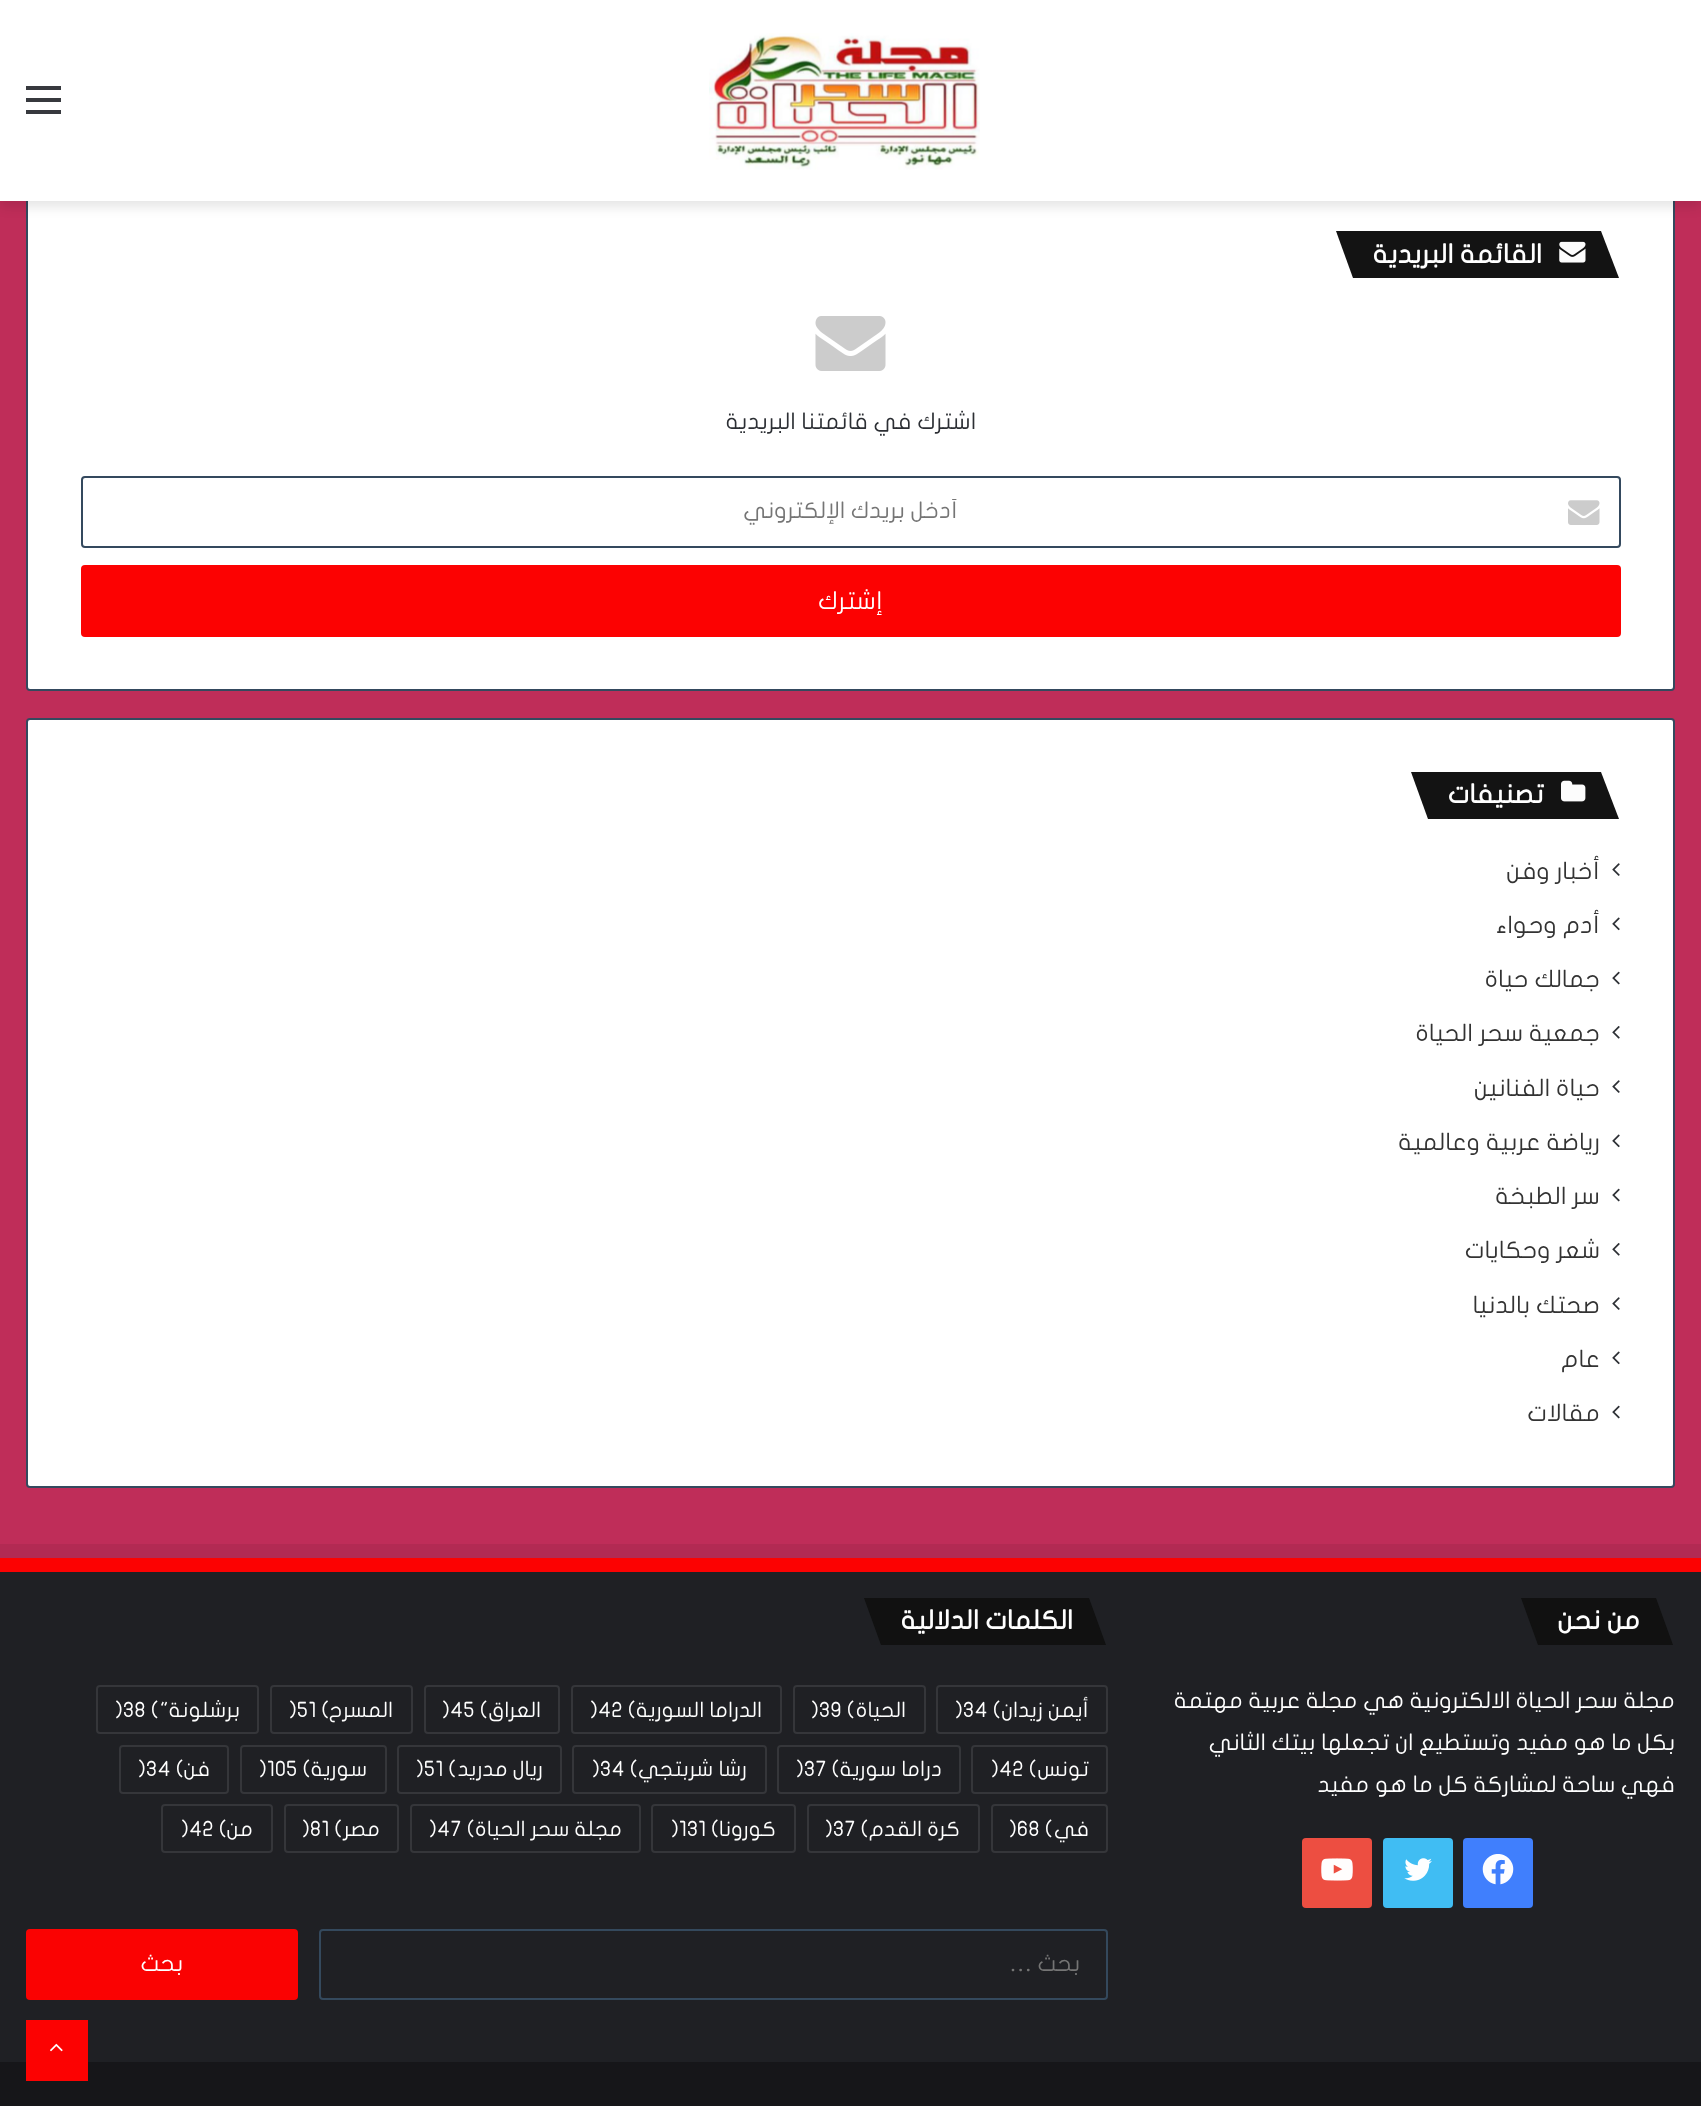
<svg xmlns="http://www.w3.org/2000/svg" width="1701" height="2106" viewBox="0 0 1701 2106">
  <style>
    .t1 { font: bold 26.25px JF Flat; direction: rtl; fill: #fff; }
    .t2 { font: 22.75px JF Flat; direction: rtl; fill: #2c2f34; }
    .t3 { font: 22.75px JF Flat; direction: rtl; fill: #757575; }
    .t4 { font: 24.5px JF Flat; direction: rtl; fill: #fff; }
    .t5 { font: 24px JF Flat; direction: rtl; fill: #333; }
    .t6 { font: 22.75px JF Flat; direction: rtl; fill: #fff; }
    .t7 { font: 21px JF Flat; direction: rtl; fill: #fff; }
    .t8 { font: 21px JF Flat; fill: #fff; }
    .t9 { font: 22.75px Liberation Serif; direction: rtl; fill: #757575; }
  </style>
  <defs>
    <clipPath id="clip1"><rect x="135" y="499" width="1431" height="26"/></clipPath>
  </defs>
  <rect width="100%" height="100%" fill="#bf2d59"/>
  <rect x="27" y="178" width="1647" height="512" rx="3" fill="#fff" stroke="#34495e" stroke-width="2"/>
  <rect x="0" y="5" width="1701" height="202" fill="#0000001a" filter="blur(6px)"/>
  <rect x="0" y="0" width="1701" height="201" fill="#fff"/>
  <image x="709" y="33" width="271" height="137" href="images/1.png"/>
  <rect x="26" y="98" width="35" height="4" fill="#37393e"/>
  <rect x="26" y="86" width="35" height="4" fill="#37393e"/>
  <rect x="26" y="110" width="35" height="4" fill="#37393e"/>
  <path d="M1336 231H1601L1619 278H1353Z" fill="#131313"/>
  <image x="1559" y="241" width="27" height="22" href="images/2.png"/>
  <text x="1542" y="263" class="t1">القائمة البريدية</text>
  <image x="815" y="316" width="71" height="55" href="images/3.png"/>
  <text x="976" y="429" class="t2">اشترك في قائمتنا البريدية</text>
  <rect x="82" y="477" width="1538" height="70" rx="3" fill="none" stroke="#34495e" stroke-width="2"/>
  <image x="1568" y="500" width="32" height="25" href="images/4.png"/>
  <g clip-path="url(#clip1)">
    <text x="958" y="518" class="t3">أدخل بريدك الإلكتروني</text>
  </g>
  <rect x="81" y="565" width="1540" height="72" rx="4" fill="#fc0202"/>
  <text x="883" y="609" class="t4">إشترك</text>
  <rect x="27" y="719" width="1647" height="768" rx="3" fill="#fff" stroke="#34495e" stroke-width="2"/>
  <path d="M1411 772H1601L1619 819H1428Z" fill="#131313"/>
  <image x="1561" y="780" width="25" height="22" href="images/5.png"/>
  <text x="1544" y="803" class="t1">تصنيفات</text>
  <image x="1612" y="863" width="8" height="13" href="images/6.png"/>
  <text x="1600" y="879" class="t5">أخبار وفن</text>
  <image x="1612" y="917" width="8" height="14" href="images/7.png"/>
  <text x="1600" y="933" class="t5">أدم وحواء</text>
  <image x="1612" y="971" width="8" height="14" href="images/8.png"/>
  <text x="1600" y="987" class="t5">جمالك حياة</text>
  <image x="1612" y="1026" width="8" height="13" href="images/9.png"/>
  <text x="1600" y="1041" class="t5">جمعية سحر الحياة</text>
  <image x="1612" y="1080" width="8" height="13" href="images/6.png"/>
  <text x="1600" y="1096" class="t5">حياة الفنانين</text>
  <image x="1612" y="1134" width="8" height="14" href="images/7.png"/>
  <text x="1600" y="1150" class="t5">رياضة عربية وعالمية</text>
  <image x="1612" y="1188" width="8" height="14" href="images/8.png"/>
  <text x="1600" y="1204" class="t5">سر الطبخة</text>
  <image x="1612" y="1243" width="8" height="13" href="images/9.png"/>
  <text x="1600" y="1258" class="t5">شعر وحكايات</text>
  <image x="1612" y="1297" width="8" height="13" href="images/6.png"/>
  <text x="1600" y="1313" class="t5">صحتك بالدنيا</text>
  <image x="1612" y="1351" width="8" height="14" href="images/7.png"/>
  <text x="1600" y="1367" class="t5">عام</text>
  <image x="1612" y="1405" width="8" height="14" href="images/8.png"/>
  <text x="1600" y="1421" class="t5">مقالات</text>
  <rect x="0" y="1572" width="1701" height="490" fill="#1f2024"/>
  <rect x="0" y="1544" width="1701" height="14" fill="#b22a53"/>
  <rect x="0" y="1558" width="1701" height="14" fill="#fc0202"/>
  <path d="M1521 1598H1656L1673 1645H1538Z" fill="#111"/>
  <text x="1640" y="1629" class="t1">من نحن</text>
  <text x="1675" y="1708" class="t6">مجلة سحر الحياة الالكترونية هي مجلة عربية مهتمة</text>
  <text x="1675" y="1750" class="t6">بكل ما هو مفيد وتستطيع ان تجعلها بيتك الثاني</text>
  <text x="1675" y="1792" class="t6">فهي ساحة لمشاركة كل ما هو مفيد</text>
  <rect x="1463" y="1838" width="70" height="70" rx="4" fill="#407ffd"/>
  <image x="1482" y="1854" width="32" height="31" href="images/10.png"/>
  <rect x="1383" y="1838" width="70" height="70" rx="4" fill="#40bdf3"/>
  <image x="1404" y="1858" width="28" height="23" href="images/11.png"/>
  <rect x="1302" y="1838" width="70" height="70" rx="4" fill="#ed4e41"/>
  <image x="1321" y="1858" width="32" height="23" href="images/12.png"/>
  <path d="M864 1598H1089L1106 1645H881Z" fill="#111"/>
  <text x="1073" y="1629" class="t1">الكلمات الدلالية</text>
  <rect x="937" y="1686" width="170" height="47" rx="3" fill="none" stroke="#35363a" stroke-width="2"/>
  <text x="1089" y="1717" class="t7">أيمن زيدان</text>
  <text x="955" y="1717" class="t8">)34 (</text>
  <rect x="794" y="1686" width="131" height="47" rx="3" fill="none" stroke="#35363a" stroke-width="2"/>
  <text x="906" y="1717" class="t7">الحياة</text>
  <text x="811" y="1717" class="t8">)39 (</text>
  <rect x="572" y="1686" width="209" height="47" rx="3" fill="none" stroke="#35363a" stroke-width="2"/>
  <text x="762" y="1717" class="t7">الدراما السورية</text>
  <text x="590" y="1717" class="t8">)42 (</text>
  <rect x="425" y="1686" width="134" height="47" rx="3" fill="none" stroke="#35363a" stroke-width="2"/>
  <text x="541" y="1717" class="t7">العراق</text>
  <text x="442" y="1717" class="t8">)45 (</text>
  <rect x="271" y="1686" width="141" height="47" rx="3" fill="none" stroke="#35363a" stroke-width="2"/>
  <text x="393" y="1717" class="t7">المسرح</text>
  <text x="289" y="1717" class="t8">)51 (</text>
  <rect x="97" y="1686" width="161" height="47" rx="3" fill="none" stroke="#35363a" stroke-width="2"/>
  <text x="240" y="1717" class="t7">برشلونة"</text>
  <text x="115" y="1717" class="t8">)38 (</text>
  <rect x="972" y="1746" width="135" height="47" rx="3" fill="none" stroke="#35363a" stroke-width="2"/>
  <text x="1089" y="1776" class="t7">تونس</text>
  <text x="991" y="1776" class="t8">)42 (</text>
  <rect x="778" y="1746" width="182" height="47" rx="3" fill="none" stroke="#35363a" stroke-width="2"/>
  <text x="942" y="1776" class="t7">دراما سورية</text>
  <text x="796" y="1776" class="t8">)37 (</text>
  <rect x="573" y="1746" width="193" height="47" rx="3" fill="none" stroke="#35363a" stroke-width="2"/>
  <text x="747" y="1776" class="t7">رشا شربتجي</text>
  <text x="592" y="1776" class="t8">)34 (</text>
  <rect x="398" y="1746" width="163" height="47" rx="3" fill="none" stroke="#35363a" stroke-width="2"/>
  <text x="543" y="1776" class="t7">ريال مدريد</text>
  <text x="416" y="1776" class="t8">)51 (</text>
  <rect x="241" y="1746" width="145" height="47" rx="3" fill="none" stroke="#35363a" stroke-width="2"/>
  <text x="367" y="1776" class="t7">سورية</text>
  <text x="259" y="1776" class="t8">)105 (</text>
  <rect x="120" y="1746" width="108" height="47" rx="3" fill="none" stroke="#35363a" stroke-width="2"/>
  <text x="210" y="1776" class="t7">فن</text>
  <text x="138" y="1776" class="t8">)34 (</text>
  <rect x="992" y="1805" width="115" height="47" rx="3" fill="none" stroke="#35363a" stroke-width="2"/>
  <text x="1089" y="1836" class="t7">في</text>
  <text x="1009" y="1836" class="t8">)68 (</text>
  <rect x="808" y="1805" width="171" height="47" rx="3" fill="none" stroke="#35363a" stroke-width="2"/>
  <text x="960" y="1836" class="t7">كرة القدم</text>
  <text x="825" y="1836" class="t8">)37 (</text>
  <rect x="652" y="1805" width="143" height="47" rx="3" fill="none" stroke="#35363a" stroke-width="2"/>
  <text x="776" y="1836" class="t7">كورونا</text>
  <text x="671" y="1836" class="t8">)131 (</text>
  <rect x="411" y="1805" width="229" height="47" rx="3" fill="none" stroke="#35363a" stroke-width="2"/>
  <text x="622" y="1836" class="t7">مجلة سحر الحياة</text>
  <text x="429" y="1836" class="t8">)47 (</text>
  <rect x="285" y="1805" width="113" height="47" rx="3" fill="none" stroke="#35363a" stroke-width="2"/>
  <text x="380" y="1836" class="t7">مصر</text>
  <text x="302" y="1836" class="t8">)81 (</text>
  <rect x="162" y="1805" width="110" height="47" rx="3" fill="none" stroke="#35363a" stroke-width="2"/>
  <text x="253" y="1836" class="t7">من</text>
  <text x="181" y="1836" class="t8">)42 (</text>
  <rect x="320" y="1930" width="787" height="69" rx="3" fill="none" stroke="#34495d" stroke-width="2"/>
  <text x="1080" y="1971" class="t3">بحث</text>
  <text x="1032" y="1971" class="t9">…</text>
  <rect x="26" y="1929" width="272" height="71" rx="4" fill="#fa0202"/>
  <text x="183" y="1971" class="t6">بحث</text>
  <rect x="0" y="2062" width="1701" height="44" fill="#161619"/>
  <rect x="26" y="2020" width="62" height="61" fill="#fc0202"/>
  <image x="50" y="2043" width="13" height="9" href="images/13.png"/>
</svg>
